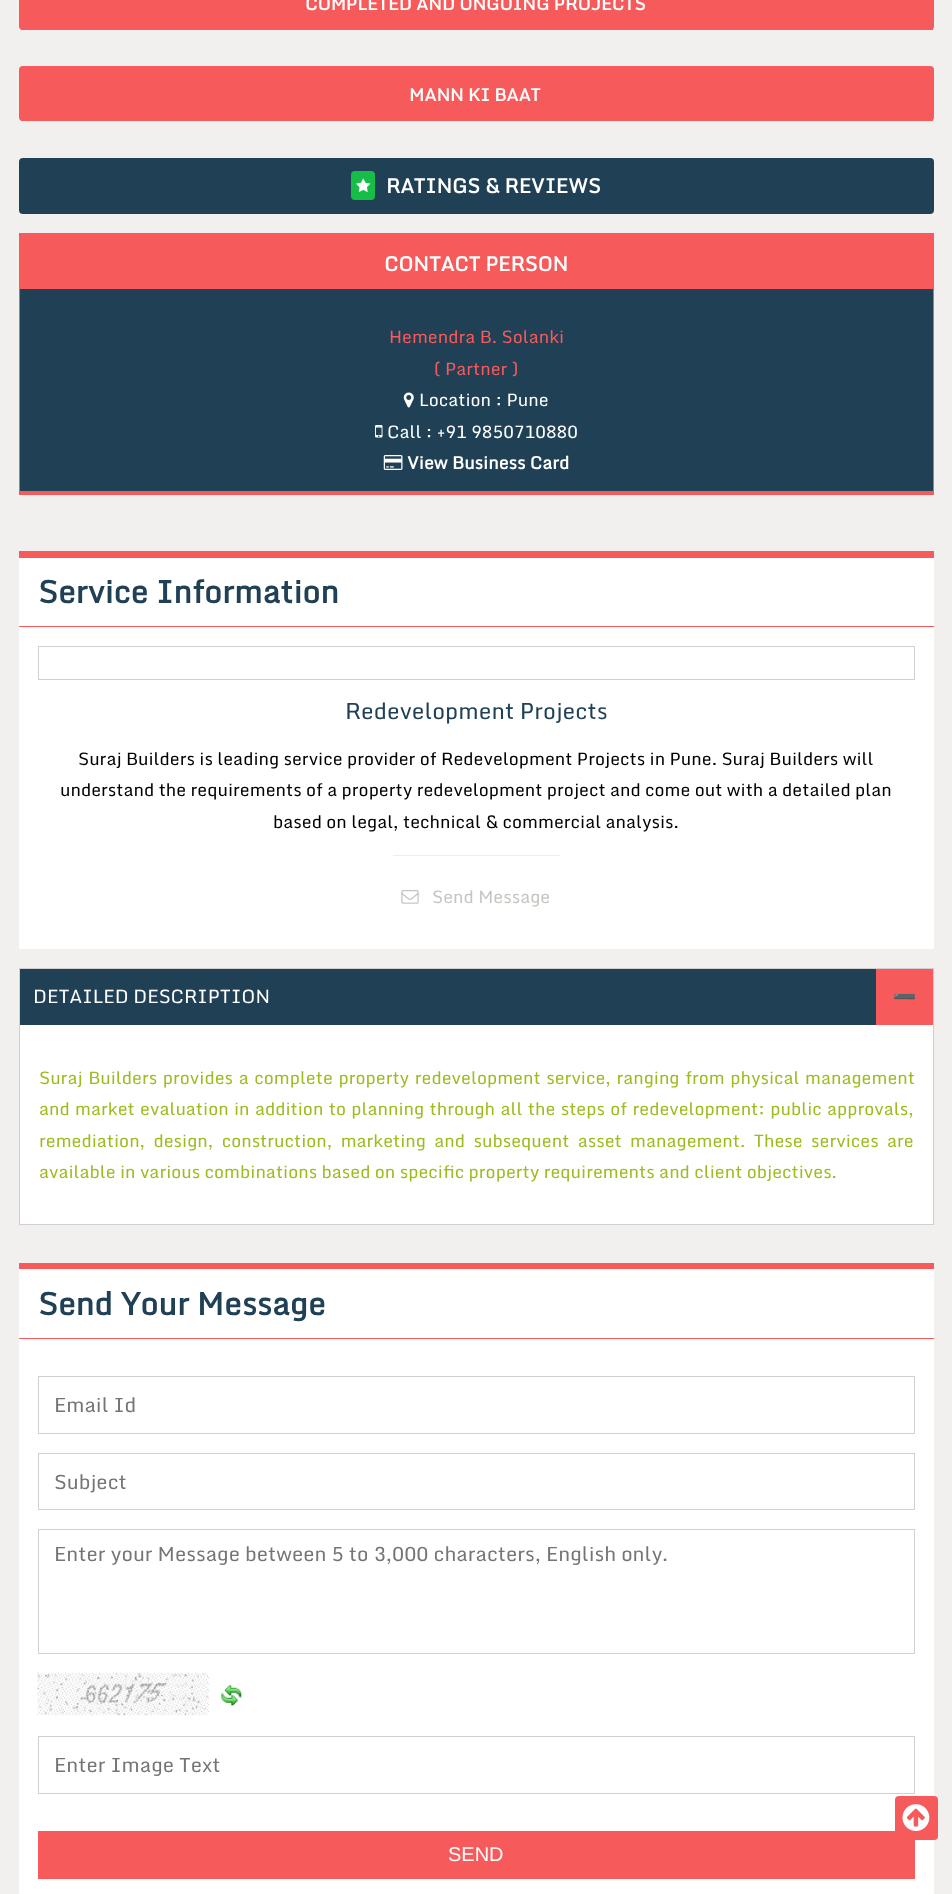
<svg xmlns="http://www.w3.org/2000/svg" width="952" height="1894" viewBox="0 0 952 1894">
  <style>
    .t1 { font: bold 17.5px Monda; fill: #fff; }
    .t2 { font: bold 20px Monda; fill: #fff; }
    .t3 { font: 17.5px Monda; fill: #f65a5b; }
    .t4 { font: 17.5px Monda; fill: #fff; }
    .t5 { font: bold 31.25px Monda; fill: #204056; }
    .t6 { font: 22.5px Monda; fill: #204056; }
    .t7 { font: 17.5px Monda; fill: #000; }
    .t8 { font: 17.5px Monda; fill: #c6c5c0; }
    .t9 { font: 18.75px Monda; fill: #fff; }
    .t10 { font: 18.75px Noto Color Emoji; fill: #fff; }
    .t11 { font: 17.5px Monda; fill: #9cbc1f; }
    .t12 { font: 20px Monda; fill: #757575; }
    .t13 { font: 20px Liberation Sans; fill: #fff; }
  </style>
  <rect width="100%" height="100%" fill="#f1f0ee"/>
  <rect x="19" y="-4" width="915" height="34" rx="4" fill="#f65a5b"/>
  <rect x="21" y="29" width="912" height="1" fill="#f65a5b"/>
  <text x="305" y="10" class="t1">COMPLETED AND ONGOING PROJECTS</text>
  <rect x="19" y="66" width="915" height="55" rx="4" fill="#f65a5b"/>
  <rect x="21" y="120" width="912" height="1" fill="#f65a5b"/>
  <text x="409" y="101" class="t1">MANN KI BAAT</text>
  <rect x="19" y="158" width="915" height="56" rx="4" fill="#204056"/>
  <rect x="351" y="171" width="24" height="29" rx="4" fill="#16be48"/>
  <image x="356" y="178" width="15" height="14" href="images/1.png"/>
  <text x="386" y="193" class="t2">RATINGS &amp; REVIEWS</text>
  <rect x="20" y="289" width="913" height="202" fill="#204056"/>
  <rect x="19" y="233" width="915" height="6" fill="#f65a5b"/>
  <rect x="933" y="233" width="1" height="262" fill="#f65a5b"/>
  <rect x="19" y="491" width="915" height="4" fill="#f65a5b"/>
  <rect x="19" y="233" width="1" height="262" fill="#f65a5b"/>
  <rect x="20" y="239" width="913" height="50" fill="#f65a5b"/>
  <text x="384" y="271" class="t2">CONTACT PERSON</text>
  <text x="389" y="343" class="t3">Hemendra B. Solanki</text>
  <text x="434" y="375" class="t3">( Partner )</text>
  <image x="403" y="392" width="11" height="16" href="images/2.png"/>
  <text x="419" y="406" class="t4">Location : Pune</text>
  <image x="375" y="425" width="8" height="13" href="images/3.png"/>
  <text x="387" y="438" class="t4">Call : +91 9850710880</text>
  <image x="383" y="455" width="20" height="15" href="images/4.png"/>
  <text x="407" y="469" class="t1">View Business Card</text>
  <rect x="19" y="558" width="915" height="391" fill="#fff"/>
  <rect x="19" y="551" width="915" height="7" fill="#f65a5b"/>
  <rect x="19" y="626" width="915" height="1" fill="#f65a5b"/>
  <text x="38" y="603" class="t5">Service Information</text>
  <rect x="38.5" y="646.5" width="876" height="33" fill="none" stroke="#d1cfcf"/>
  <text x="345" y="719" class="t6">Redevelopment Projects</text>
  <text x="78" y="765" class="t7">Suraj Builders is leading service provider of Redevelopment Projects in Pune. Suraj Builders will</text>
  <text x="60" y="796" class="t7">understand the requirements of a property redevelopment project and come out with a detailed plan</text>
  <text x="273" y="828" class="t7">based on legal, technical &amp; commercial analysis.</text>
  <rect x="393" y="855" width="167" height="1" fill="#eee"/>
  <image x="401" y="890" width="18" height="14" href="images/5.png"/>
  <text x="432" y="903" class="t8">Send Message</text>
  <rect x="933" y="968" width="1" height="257" fill="#d1cfcf"/>
  <rect x="19" y="1224" width="915" height="1" fill="#d1cfcf"/>
  <rect x="19" y="968" width="1" height="257" fill="#d1cfcf"/>
  <rect x="20" y="969" width="856" height="56" fill="#204056"/>
  <rect x="20" y="968" width="913" height="1" fill="#d1cfcf"/>
  <text x="33" y="1003" class="t9">DETAILED DESCRIPTION</text>
  <rect x="876" y="969" width="57" height="56" fill="#f65a5b"/>
  <text x="893" y="1003" class="t10">➖</text>
  <rect x="20" y="1025" width="913" height="199" fill="#fff"/>
  <text x="39" y="1084" word-spacing="1.25" class="t11">Suraj Builders provides a complete property redevelopment service, ranging from physical management</text>
  <text x="39" y="1115" word-spacing="1" class="t11">and market evaluation in addition to planning through all the steps of redevelopment: public approvals,</text>
  <text x="39" y="1147" word-spacing="4" class="t11">remediation, design, construction, marketing and subsequent asset management. These services are</text>
  <text x="39" y="1178" class="t11">available in various combinations based on specific property requirements and client objectives.</text>
  <rect x="19" y="1269" width="915" height="69" fill="#fff"/>
  <rect x="19" y="1263" width="915" height="6" fill="#f65a5b"/>
  <rect x="19" y="1338" width="915" height="1" fill="#f65a5b"/>
  <text x="38" y="1315" class="t5">Send Your Message</text>
  <rect x="19" y="1339" width="915" height="555" fill="#fff"/>
  <rect x="38.5" y="1376.5" width="876" height="57" fill="none" stroke="#d1cfcf"/>
  <text x="54" y="1412" class="t12">Email Id</text>
  <rect x="38.5" y="1453.5" width="876" height="56" fill="none" stroke="#d1cfcf"/>
  <text x="54" y="1489" class="t12">Subject</text>
  <rect x="38.5" y="1529.5" width="876" height="124" fill="none" stroke="#d1cfcf"/>
  <text x="54" y="1561" class="t12">Enter your Message between 5 to 3,000 characters, English only.</text>
  <image x="37" y="1672" width="172" height="44" href="images/6.png"/>
  <image x="221" y="1685" width="21" height="21" href="images/7.png"/>
  <rect x="38.5" y="1736.5" width="876" height="57" fill="none" stroke="#d1cfcf"/>
  <text x="54" y="1772" class="t12">Enter Image Text</text>
  <rect x="38" y="1831" width="877" height="48" fill="#f65a5b"/>
  <text x="448" y="1861" class="t13">SEND</text>
  <rect x="895" y="1796" width="43" height="44" rx="4" fill="#f65a5b"/>
  <image x="902" y="1804" width="28" height="27" href="images/8.png"/>
</svg>
